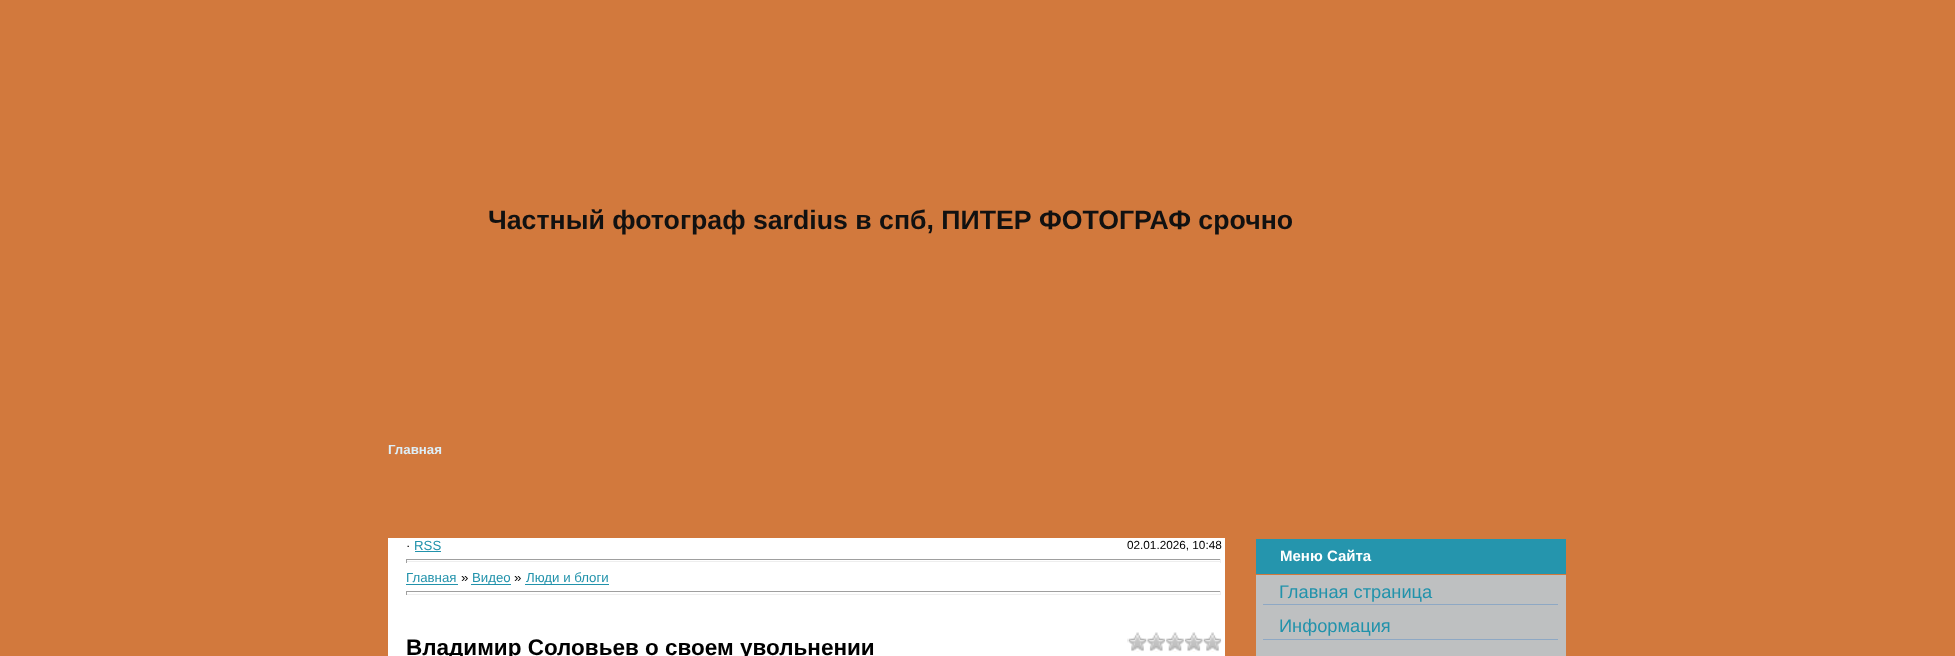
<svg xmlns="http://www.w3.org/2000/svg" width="1955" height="656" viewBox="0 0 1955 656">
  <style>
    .t1 { font: bold 26.7px Liberation Sans; fill: #111; }
    .t2 { font: bold 13.25px Liberation Sans; fill: #ddeef7; }
    .t3 { font: 13.25px Liberation Sans; fill: #000; }
    .t4 { font: 13.25px Liberation Sans; fill: #2192ab; }
    .t5 { font: 11.75px Liberation Sans; fill: #000; }
    .t6 { font: bold 22.5px Liberation Sans; fill: #000; }
    .t7 { font: bold 15px Liberation Sans; fill: #fff; }
    .t8 { font: 18.25px Liberation Sans; fill: #2192ab; }
  </style>
  <rect width="100%" height="100%" fill="#d2793d"/>
  <text x="488" y="229" class="t1">Частный фотограф sardius в спб, ПИТЕР ФОТОГРАФ срочно</text>
  <text x="388" y="454" class="t2">Главная</text>
  <rect x="388" y="538" width="837" height="118" fill="#fff"/>
  <text x="406" y="550" class="t3">·</text>
  <text x="414" y="550" class="t4">RSS</text>
  <rect x="415" y="551" width="26" height="1" fill="#2192ab"/>
  <text x="1127" y="549" class="t5">02.01.2026, 10:48</text>
  <rect x="406" y="559" width="815" height="1" fill="#9f9f9f"/>
  <rect x="1220" y="559" width="1" height="4" fill="#eee"/>
  <rect x="406" y="561" width="815" height="1" fill="#eee"/>
  <rect x="406" y="559" width="1" height="4" fill="#9f9f9f"/>
  <text x="406" y="582" class="t4">Главная</text>
  <rect x="406" y="584" width="52" height="1" fill="#2192ab"/>
  <text x="461" y="582" class="t3">»</text>
  <rect x="471" y="584" width="40" height="1" fill="#2192ab"/>
  <text x="472" y="582" class="t4">Видео</text>
  <text x="514" y="582" class="t3">»</text>
  <rect x="525" y="584" width="84" height="1" fill="#2192ab"/>
  <text x="526" y="582" class="t4">Люди и блоги</text>
  <rect x="406" y="591" width="815" height="1" fill="#9f9f9f"/>
  <rect x="1220" y="591" width="1" height="4" fill="#eee"/>
  <rect x="406" y="594" width="815" height="1" fill="#eee"/>
  <rect x="406" y="591" width="1" height="4" fill="#9f9f9f"/>
  <text x="406" y="655" class="t6">Владимир Соловьев o своем увольнении</text>
  <image x="1127" y="632" width="95" height="20" href="images/1.png"/>
  <rect x="1256" y="539" width="310" height="35" fill="#2595ad"/>
  <text x="1280" y="561" class="t7">Меню Сайта</text>
  <rect x="1256" y="575" width="310" height="81" fill="#bec0c1"/>
  <rect x="1263" y="604" width="295" height="1" fill="#8ea8c4"/>
  <text x="1279" y="598" class="t8">Главная страница</text>
  <rect x="1263" y="639" width="295" height="1" fill="#8ea8c4"/>
  <text x="1279" y="632" class="t8">Информация</text>
</svg>
